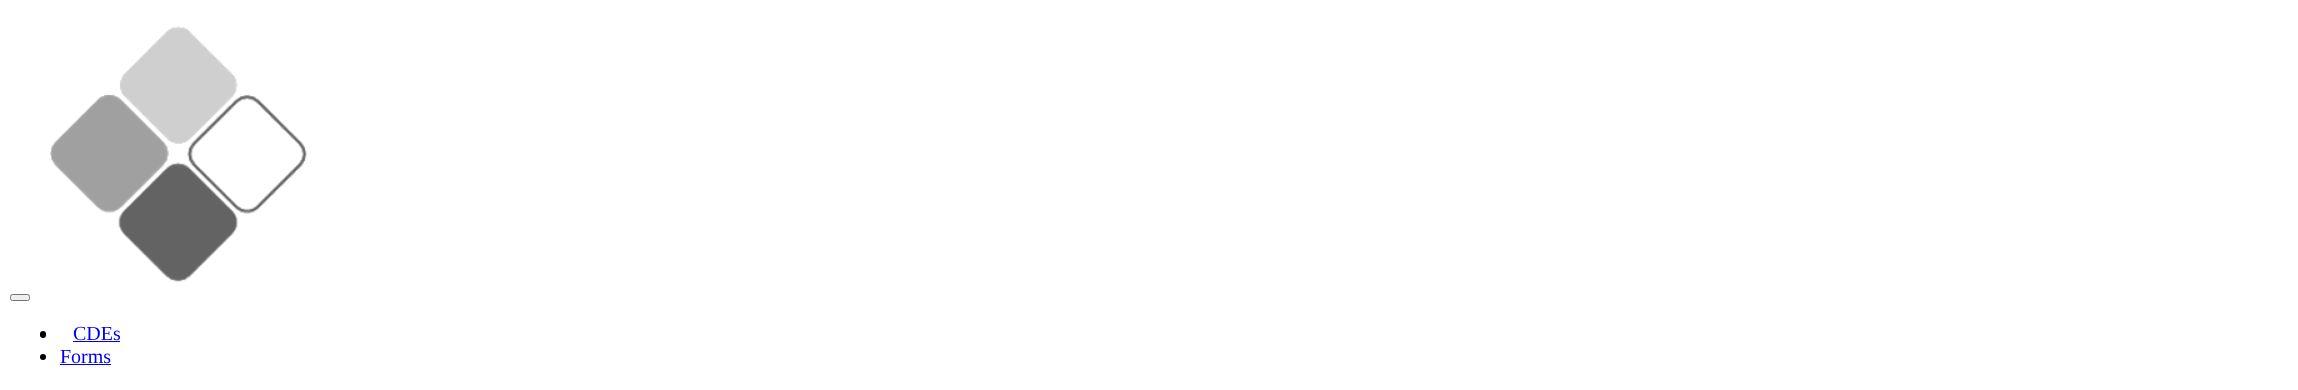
<svg xmlns="http://www.w3.org/2000/svg" width="2298" height="390" viewBox="0 0 2298 390">
  <style>
    .t1 { font: 20px Liberation Serif; fill: #00e; }
  </style>
  <rect width="100%" height="100%" fill="#fff"/>
  <image x="50" y="26" width="257" height="256" href="images/1.png"/>
  <rect x="10.5" y="294.5" width="19" height="6" rx="2" fill="#efefef" stroke="#767676"/>
  <rect x="40" y="331" width="6" height="7" rx="3" fill="#000"/>
  <text x="73" y="340" class="t1">CDEs</text>
  <rect x="73" y="341" width="47" height="1" fill="#00e"/>
  <circle cx="43" cy="357" r="3" fill="#000"/>
  <text x="60" y="363" class="t1">Forms</text>
  <rect x="60" y="364" width="51" height="1" fill="#00e"/>
</svg>
